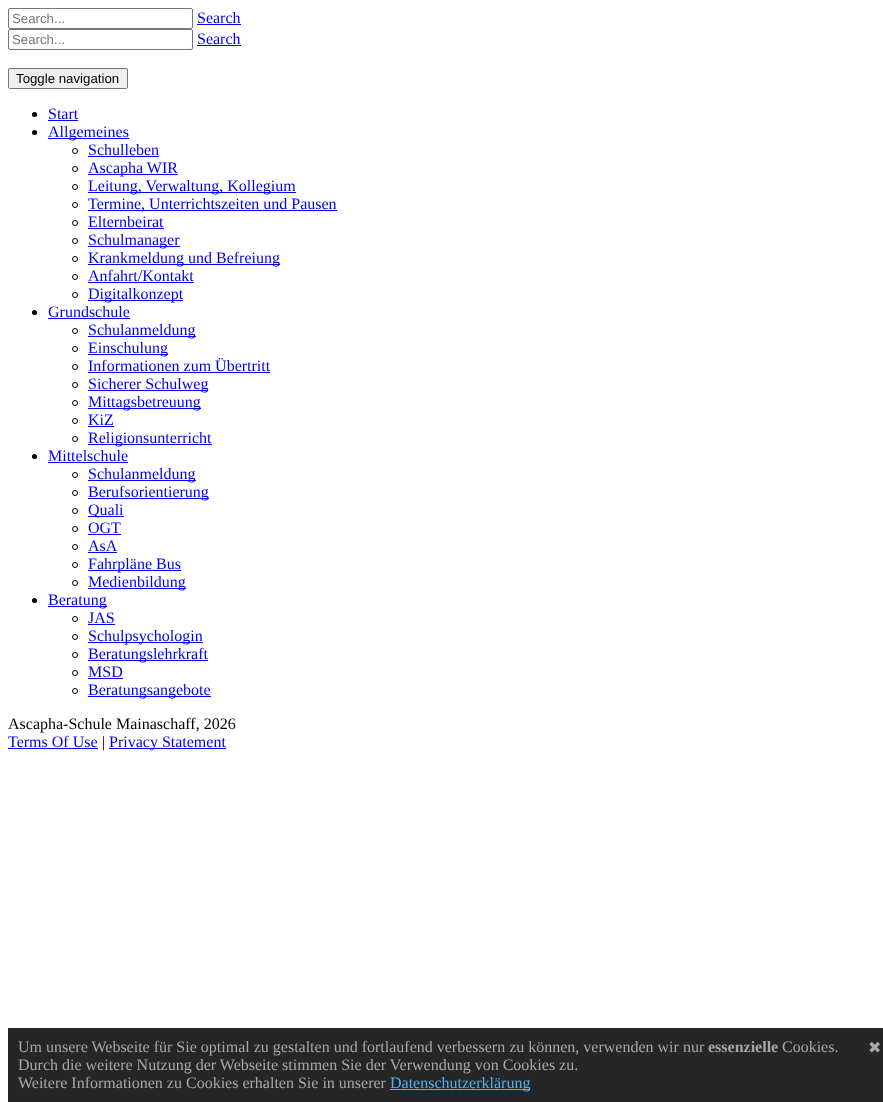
<svg xmlns="http://www.w3.org/2000/svg" width="883" height="1102" viewBox="0 0 883 1102">
  <style>
    .t1 { font: 13.25px Liberation Sans; fill: #757575; }
    .t2 { font: 16px Liberation Serif; fill: #00e; }
    .t3 { font: 13.25px Liberation Sans; fill: #000; }
    .t4 { font: 16px Liberation Serif; fill: #000; }
    .t5 { font: 16px Liberation Serif; fill: #a8a8a8; }
    .t6 { font: bold 16px Liberation Serif; fill: #a8a8a8; }
    .t7 { font: 16px Liberation Serif; fill: #50b5f2; }
    .t8 { font: 16px DejaVu Sans; fill: #a8a8a8; }
  </style>
  <rect width="100%" height="100%" fill="#fff"/>
  <rect x="8.5" y="8.5" width="184" height="20" rx="1.5" fill="none" stroke="#767676"/>
  <text x="12" y="23" class="t1">Search...</text>
  <text x="197" y="23" class="t2">Search</text>
  <rect x="197" y="24" width="44" height="1" fill="#00e"/>
  <rect x="8.5" y="29.5" width="184" height="20" rx="1.5" fill="none" stroke="#767676"/>
  <text x="12" y="44" class="t1">Search...</text>
  <text x="197" y="44" class="t2">Search</text>
  <rect x="197" y="45" width="44" height="1" fill="#00e"/>
  <rect x="8.5" y="68.5" width="119" height="20" rx="1.5" fill="#efefef" stroke="#767676"/>
  <text x="16" y="83" class="t3">Toggle navigation</text>
  <circle cx="34.5" cy="114.5" r="2.5" fill="#000"/>
  <text x="48" y="119" class="t2">Start</text>
  <rect x="48" y="120" width="30" height="1" fill="#00e"/>
  <circle cx="34.5" cy="132.5" r="2.5" fill="#000"/>
  <rect x="48" y="138" width="81" height="1" fill="#00e"/>
  <text x="48" y="137" class="t2">Allgemeines</text>
  <circle cx="75" cy="151" r="2.5" fill="none" stroke="#000"/>
  <text x="88" y="155" class="t2">Schulleben</text>
  <rect x="88" y="156" width="71" height="1" fill="#00e"/>
  <circle cx="75" cy="169" r="2.5" fill="none" stroke="#000"/>
  <rect x="88" y="174" width="90" height="1" fill="#00e"/>
  <text x="88" y="173" class="t2">Ascapha WIR</text>
  <circle cx="75" cy="187" r="2.5" fill="none" stroke="#000"/>
  <rect x="88" y="192" width="208" height="1" fill="#00e"/>
  <text x="88" y="191" class="t2">Leitung, Verwaltung, Kollegium</text>
  <circle cx="75" cy="205" r="2.5" fill="none" stroke="#000"/>
  <rect x="88" y="210" width="249" height="1" fill="#00e"/>
  <text x="88" y="209" class="t2">Termine, Unterrichtszeiten und Pausen</text>
  <circle cx="75" cy="223" r="2.5" fill="none" stroke="#000"/>
  <text x="88" y="227" class="t2">Elternbeirat</text>
  <rect x="88" y="228" width="76" height="1" fill="#00e"/>
  <circle cx="75" cy="241" r="2.5" fill="none" stroke="#000"/>
  <rect x="88" y="246" width="92" height="1" fill="#00e"/>
  <text x="88" y="245" class="t2">Schulmanager</text>
  <circle cx="75" cy="259" r="2.5" fill="none" stroke="#000"/>
  <rect x="88" y="264" width="192" height="1" fill="#00e"/>
  <text x="88" y="263" class="t2">Krankmeldung und Befreiung</text>
  <circle cx="75" cy="277" r="2.5" fill="none" stroke="#000"/>
  <text x="88" y="281" class="t2">Anfahrt/Kontakt</text>
  <rect x="88" y="282" width="106" height="1" fill="#00e"/>
  <circle cx="75" cy="295" r="2.5" fill="none" stroke="#000"/>
  <rect x="88" y="300" width="95" height="1" fill="#00e"/>
  <text x="88" y="299" class="t2">Digitalkonzept</text>
  <circle cx="34.5" cy="312.5" r="2.5" fill="#000"/>
  <text x="48" y="317" class="t2">Grundschule</text>
  <rect x="48" y="318" width="82" height="1" fill="#00e"/>
  <circle cx="75" cy="331" r="2.5" fill="none" stroke="#000"/>
  <rect x="88" y="336" width="108" height="1" fill="#00e"/>
  <text x="88" y="335" class="t2">Schulanmeldung</text>
  <circle cx="75" cy="349" r="2.5" fill="none" stroke="#000"/>
  <rect x="88" y="354" width="80" height="1" fill="#00e"/>
  <text x="88" y="353" class="t2">Einschulung</text>
  <circle cx="75" cy="367" r="2.5" fill="none" stroke="#000"/>
  <text x="88" y="371" class="t2">Informationen zum Übertritt</text>
  <rect x="88" y="372" width="182" height="1" fill="#00e"/>
  <circle cx="75" cy="385" r="2.5" fill="none" stroke="#000"/>
  <rect x="88" y="390" width="120" height="1" fill="#00e"/>
  <text x="88" y="389" class="t2">Sicherer Schulweg</text>
  <circle cx="75" cy="403" r="2.5" fill="none" stroke="#000"/>
  <rect x="88" y="408" width="113" height="1" fill="#00e"/>
  <text x="88" y="407" class="t2">Mittagsbetreuung</text>
  <circle cx="75" cy="421" r="2.5" fill="none" stroke="#000"/>
  <text x="88" y="425" class="t2">KiZ</text>
  <rect x="88" y="426" width="26" height="1" fill="#00e"/>
  <circle cx="75" cy="439" r="2.5" fill="none" stroke="#000"/>
  <rect x="88" y="444" width="124" height="1" fill="#00e"/>
  <text x="88" y="443" class="t2">Religionsunterricht</text>
  <circle cx="34.5" cy="456.5" r="2.5" fill="#000"/>
  <text x="48" y="461" class="t2">Mittelschule</text>
  <rect x="48" y="462" width="80" height="1" fill="#00e"/>
  <circle cx="75" cy="475" r="2.5" fill="none" stroke="#000"/>
  <rect x="88" y="480" width="108" height="1" fill="#00e"/>
  <text x="88" y="479" class="t2">Schulanmeldung</text>
  <circle cx="75" cy="493" r="2.5" fill="none" stroke="#000"/>
  <rect x="88" y="498" width="121" height="1" fill="#00e"/>
  <text x="88" y="497" class="t2">Berufsorientierung</text>
  <circle cx="75" cy="511" r="2.5" fill="none" stroke="#000"/>
  <rect x="88" y="516" width="36" height="1" fill="#00e"/>
  <text x="88" y="515" class="t2">Quali</text>
  <circle cx="75" cy="529" r="2.5" fill="none" stroke="#000"/>
  <text x="88" y="533" class="t2">OGT</text>
  <rect x="88" y="534" width="33" height="1" fill="#00e"/>
  <circle cx="75" cy="547" r="2.5" fill="none" stroke="#000"/>
  <text x="88" y="551" class="t2">AsA</text>
  <rect x="88" y="552" width="29" height="1" fill="#00e"/>
  <circle cx="75" cy="565" r="2.5" fill="none" stroke="#000"/>
  <rect x="88" y="570" width="93" height="1" fill="#00e"/>
  <text x="88" y="569" class="t2">Fahrpläne Bus</text>
  <circle cx="75" cy="583" r="2.5" fill="none" stroke="#000"/>
  <rect x="88" y="588" width="98" height="1" fill="#00e"/>
  <text x="88" y="587" class="t2">Medienbildung</text>
  <circle cx="34.5" cy="600.5" r="2.5" fill="#000"/>
  <rect x="48" y="606" width="59" height="1" fill="#00e"/>
  <text x="48" y="605" class="t2">Beratung</text>
  <circle cx="75" cy="619" r="2.5" fill="none" stroke="#000"/>
  <text x="88" y="623" class="t2">JAS</text>
  <rect x="88" y="624" width="27" height="1" fill="#00e"/>
  <circle cx="75" cy="637" r="2.5" fill="none" stroke="#000"/>
  <rect x="88" y="642" width="115" height="1" fill="#00e"/>
  <text x="88" y="641" class="t2">Schulpsychologin</text>
  <circle cx="75" cy="655" r="2.5" fill="none" stroke="#000"/>
  <rect x="88" y="660" width="120" height="1" fill="#00e"/>
  <text x="88" y="659" class="t2">Beratungslehrkraft</text>
  <circle cx="75" cy="673" r="2.5" fill="none" stroke="#000"/>
  <text x="88" y="677" class="t2">MSD</text>
  <rect x="88" y="678" width="35" height="1" fill="#00e"/>
  <circle cx="75" cy="691" r="2.5" fill="none" stroke="#000"/>
  <rect x="88" y="696" width="123" height="1" fill="#00e"/>
  <text x="88" y="695" class="t2">Beratungsangebote</text>
  <text x="8" y="729" class="t4">Ascapha-Schule Mainaschaff, 2026</text>
  <text x="8" y="747" class="t2">Terms Of Use</text>
  <rect x="8" y="748" width="90" height="1" fill="#00e"/>
  <text x="102" y="747" class="t4">|</text>
  <rect x="109" y="748" width="117" height="1" fill="#00e"/>
  <text x="109" y="747" class="t2">Privacy Statement</text>
  <rect x="8" y="1028" width="875" height="74" fill="#262626"/>
  <text x="18" y="1052" class="t5">Um unsere Webseite für Sie optimal zu gestalten und fortlaufend verbessern zu können, verwenden wir nur</text>
  <text x="708" y="1052" class="t6">essenzielle</text>
  <text x="782" y="1052" class="t5">Cookies.</text>
  <text x="18" y="1070" class="t5">Durch die weitere Nutzung der Webseite stimmen Sie der Verwendung von Cookies zu.</text>
  <text x="18" y="1088" class="t5">Weitere Informationen zu Cookies erhalten Sie in unserer</text>
  <rect x="390" y="1089" width="140" height="1" fill="#50b5f2"/>
  <text x="390" y="1088" class="t7">Datenschutzerklärung</text>
  <text x="868" y="1053" class="t8">✖</text>
</svg>
